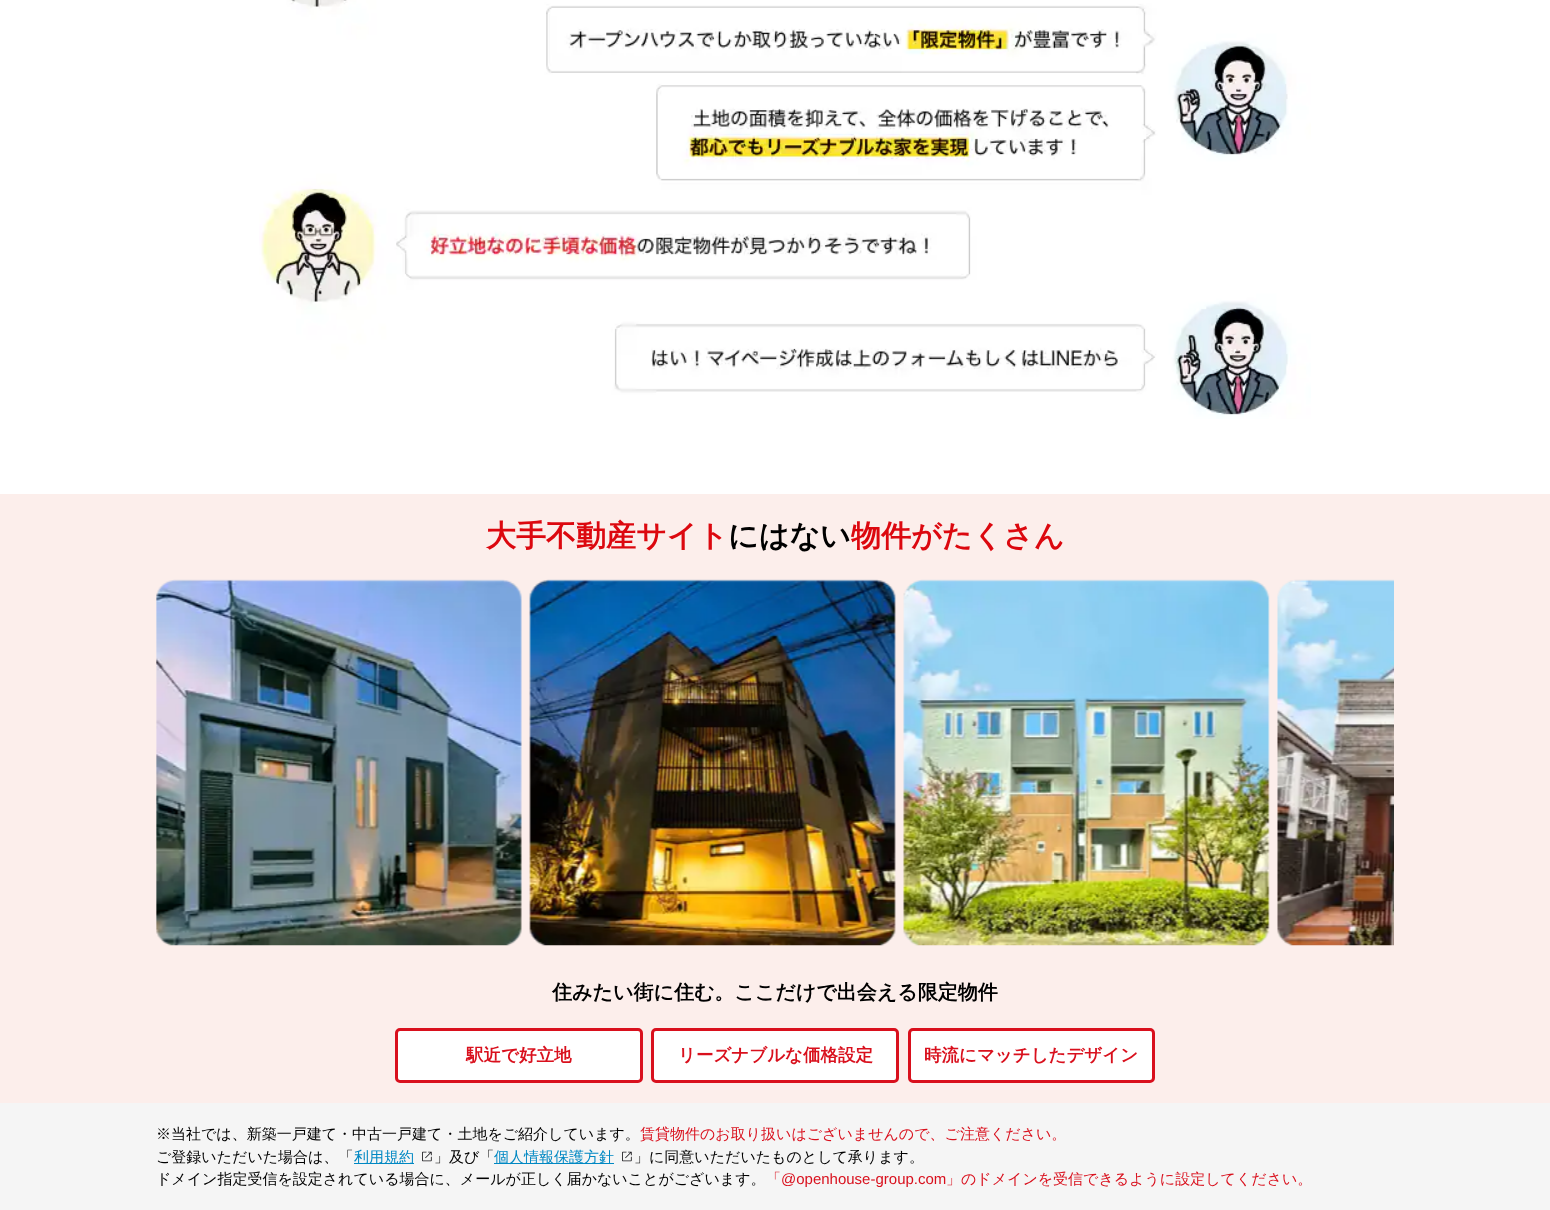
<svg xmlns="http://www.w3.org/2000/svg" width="1550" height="1210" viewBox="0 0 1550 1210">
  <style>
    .t1 { font: bold 30px WenQuanYi Zen Hei; fill: #dc080f; }
    .t2 { font: bold 30px WenQuanYi Zen Hei; fill: #000; }
    .t3 { font: bold 20px WenQuanYi Zen Hei; fill: #000; }
    .t4 { font: bold 17.5px WenQuanYi Zen Hei; fill: #d9101d; }
    .t5 { font: 500 15px WenQuanYi Zen Hei; fill: #000; }
    .t6 { font: 500 15px WenQuanYi Zen Hei; fill: #d9101d; }
    .t7 { font: 500 15px WenQuanYi Zen Hei; fill: #0088c3; }
    .t8 { font: 15px Liberation Sans; fill: #d9101d; }
  </style>
  <rect width="100%" height="100%" fill="#fff"/>
  <image x="259" y="0" width="1052" height="419" href="images/1.png"/>
  <rect x="0" y="494" width="1550" height="609" fill="#fceeeb"/>
  <text x="486" y="546" class="t1">大手不動産サイト</text>
  <text x="728" y="546" class="t2">にはない</text>
  <text x="851" y="546" class="t1">物件がたくさん</text>
  <image x="156" y="579" width="366" height="367" href="images/2.png"/>
  <image x="529" y="579" width="367" height="367" href="images/3.png"/>
  <image x="903" y="579" width="367" height="367" href="images/4.png"/>
  <image x="1277" y="579" width="117" height="367" href="images/5.png"/>
  <text x="552" y="999" class="t3">住みたい街に住む。ここだけで出会える限定物件</text>
  <rect x="396.5" y="1029.5" width="245" height="52" rx="3.5" fill="#fff" stroke="#d9101d" stroke-width="3"/>
  <text x="466" y="1061" class="t4">駅近で好立地</text>
  <rect x="652.5" y="1029.5" width="245" height="52" rx="3.5" fill="#fff" stroke="#d9101d" stroke-width="3"/>
  <text x="678" y="1061" class="t4">リーズナブルな価格設定</text>
  <rect x="909.5" y="1029.5" width="244" height="52" rx="3.5" fill="#fff" stroke="#d9101d" stroke-width="3"/>
  <text x="924" y="1061" class="t4">時流にマッチしたデザイン</text>
  <rect x="0" y="1103" width="1550" height="107" fill="#f5f5f5"/>
  <text x="156" y="1139" class="t5">※当社では、新築一戸建て・中古一戸建て・土地をご紹介しています。</text>
  <text x="640" y="1139" class="t6">賃貸物件のお取り扱いはございませんので、ご注意ください。</text>
  <text x="156" y="1162" class="t5">ご登録いただいた場合は、「</text>
  <rect x="354" y="1163" width="60" height="1" fill="#0088c3"/>
  <text x="354" y="1162" class="t7">利用規約</text>
  <image x="422" y="1151" width="10" height="11" href="images/6.png"/>
  <text x="434" y="1162" class="t5">」及び「</text>
  <rect x="494" y="1163" width="120" height="1" fill="#0088c3"/>
  <text x="494" y="1162" class="t7">個人情報保護方針</text>
  <image x="622" y="1151" width="10" height="11" href="images/6.png"/>
  <text x="634" y="1162" class="t5">」に同意いただいたものとして承ります。</text>
  <text x="156" y="1184" class="t5">ドメイン指定受信を設定されている場合に、メールが正しく届かないことがございます。</text>
  <text x="766" y="1184" class="t6">「</text>
  <text x="781" y="1184" class="t8">@openhouse-group.com</text>
  <text x="946" y="1184" class="t6">」のドメインを受信できるように設定してください。</text>
</svg>
